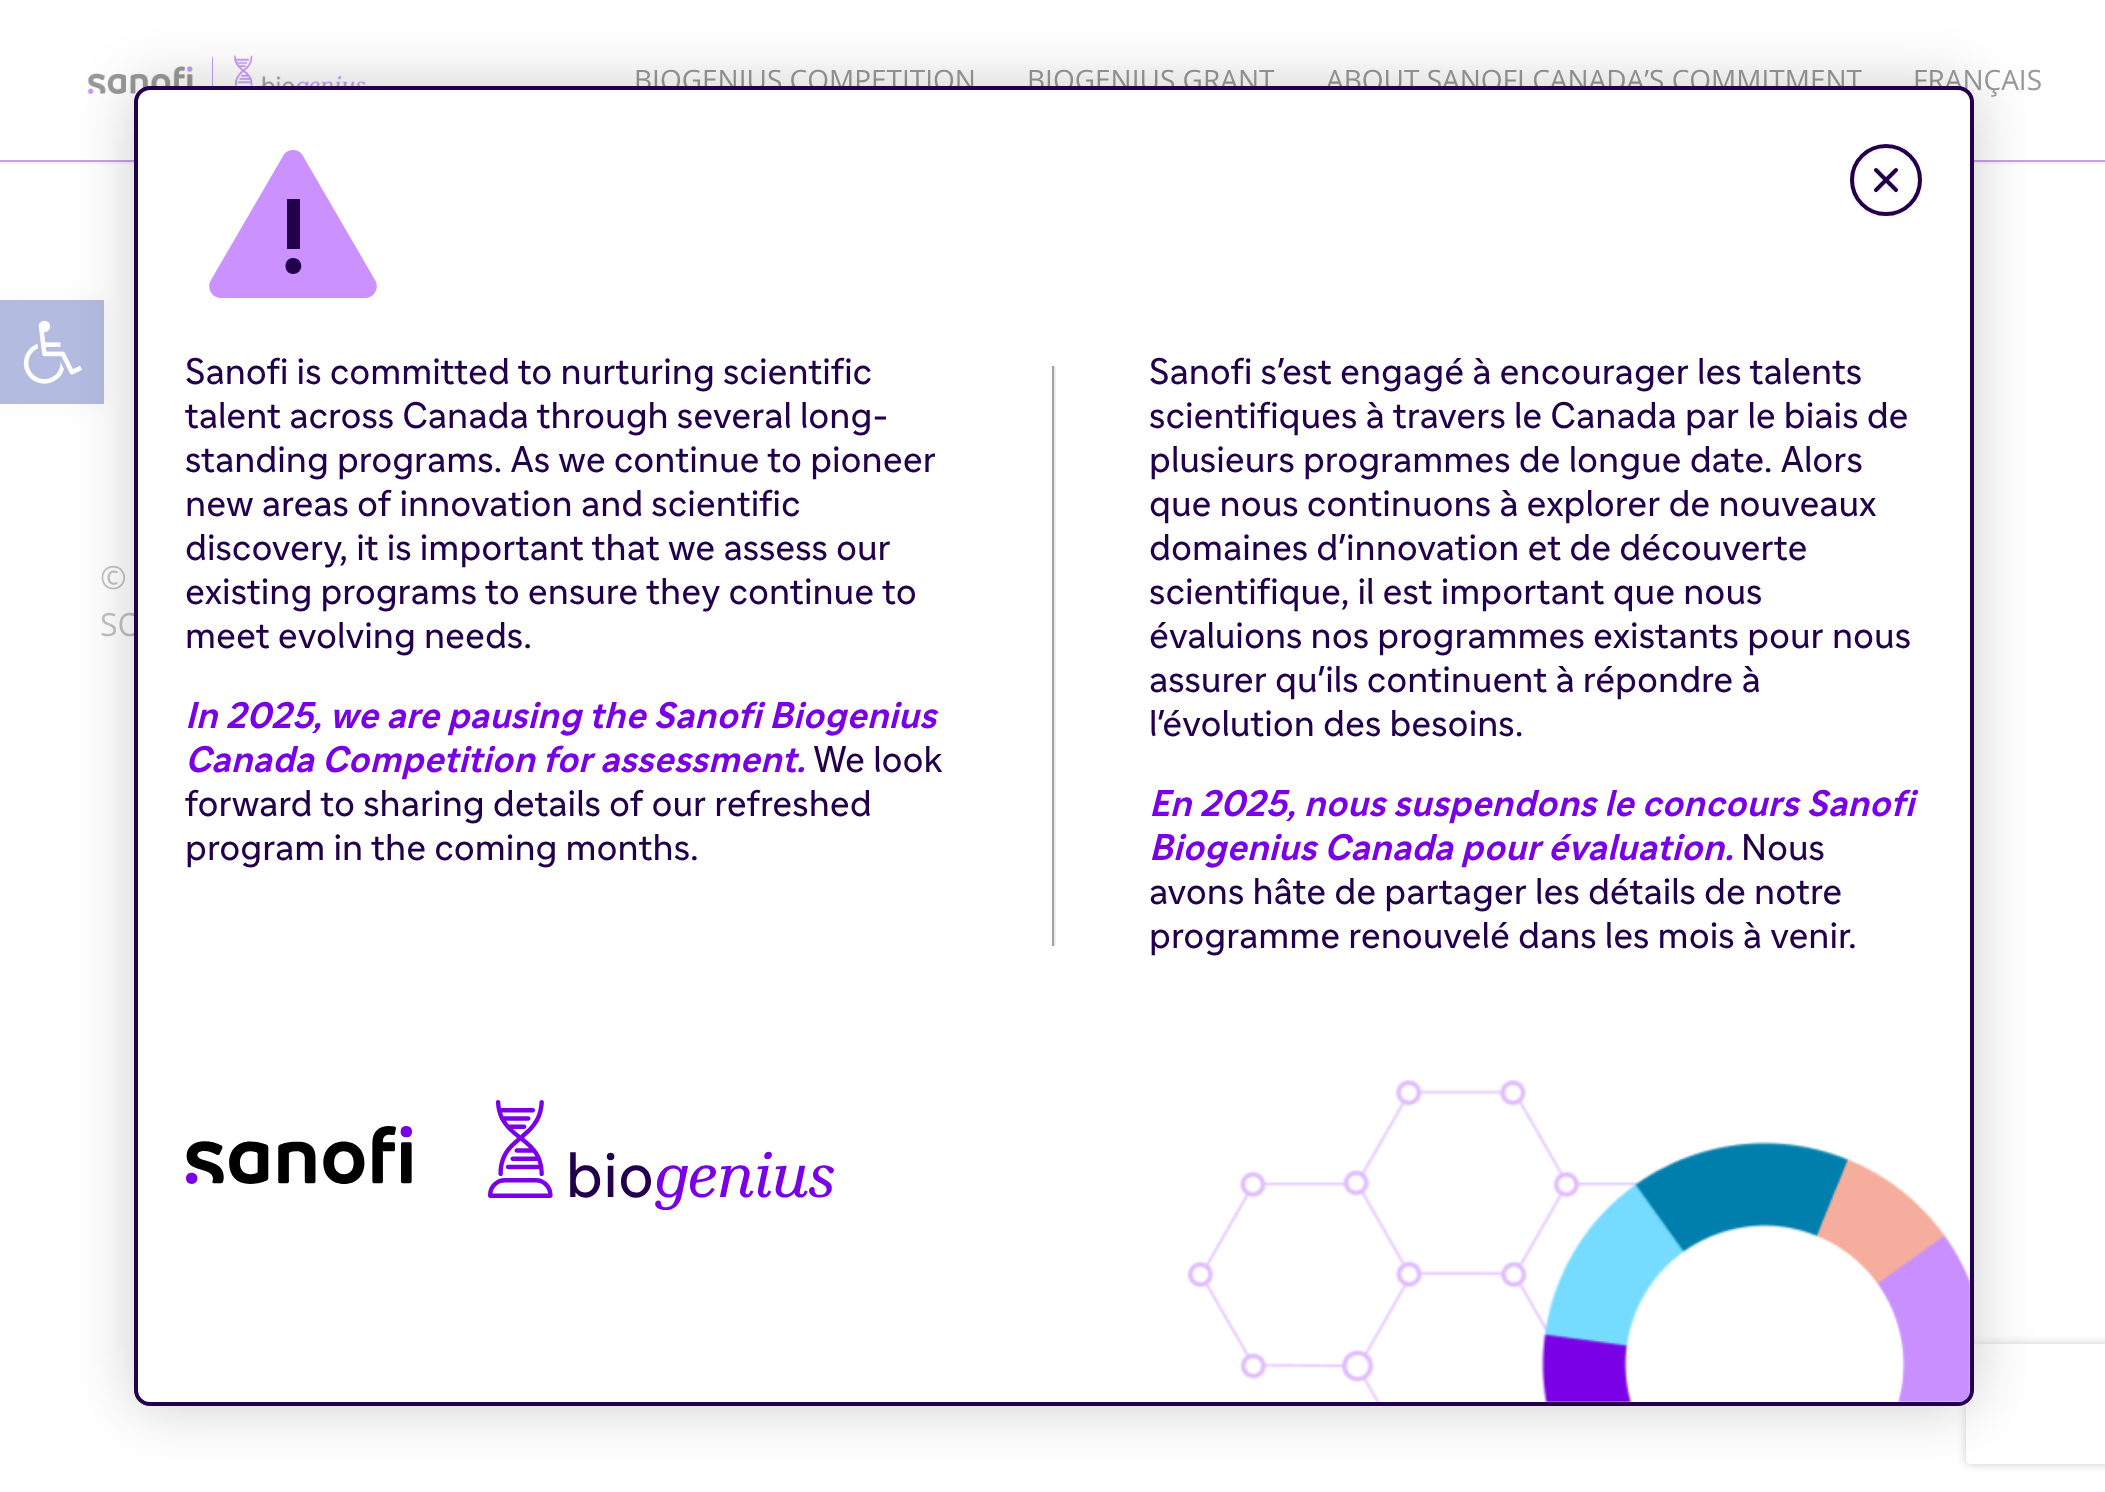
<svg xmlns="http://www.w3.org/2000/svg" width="2105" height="1492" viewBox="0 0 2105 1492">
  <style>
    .t1 { font: 28px Open Sans; fill: #999; }
    .t2 { font: 32px Open Sans; fill: #c2c2c2; }
    .t3 { font: 36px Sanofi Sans; fill: #23004c; }
    .t4 { font: italic bold 36px Sanofi Sans; fill: #7a00e6; }
  </style>
  <defs>
    <clipPath id="clip1"><path d="M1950 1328H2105V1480H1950ZM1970 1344H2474C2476 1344 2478 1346 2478 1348V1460C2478 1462 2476 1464 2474 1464H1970C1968 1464 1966 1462 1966 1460V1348C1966 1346 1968 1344 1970 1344Z" clip-rule="evenodd"/></clipPath>
  </defs>
  <rect width="100%" height="100%" fill="#fff"/>
  <rect x="0" y="300" width="104" height="104" fill="#9999991a" filter="blur(10px)"/>
  <rect x="0" y="300" width="104" height="104" fill="#b3bbe0"/>
  <image x="23" y="320" width="59" height="64" href="images/1.png"/>
  <rect x="0" y="162" width="2105" height="2" fill="#f5f5f5"/>
  <rect x="0" y="160" width="2105" height="2" fill="#c5a1f1"/>
  <image x="87" y="55" width="279" height="39" href="images/2.png"/>
  <text x="634" y="90" class="t1">BIOGENIUS COMPETITION</text>
  <text x="1027" y="90" class="t1">BIOGENIUS GRANT</text>
  <text x="1326" y="90" class="t1">ABOUT SANOFI CANADA’S COMMITMENT</text>
  <text x="1913" y="90" class="t1">FRANÇAIS</text>
  <text x="100" y="589" class="t2">©</text>
  <text x="100" y="636" class="t2">SO</text>
  <rect x="134" y="86" width="1840" height="1320" rx="16" fill="#00000033" filter="blur(30px)"/>
  <g clip-path="url(#clip1)">
    <rect x="1966" y="1344" width="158" height="120" rx="4" fill="#ccc" filter="blur(5px)"/>
  </g>
  <rect x="136" y="88" width="1836" height="1316" rx="14" fill="#fff" stroke="#23004c" stroke-width="4"/>
  <path d="M283 156C287 148 299 148 303 156L375 280C380 288 374 298 365 298H221C212 298 206 288 211 280Z" fill="#cb91ff"/>
  <path d="M300 234V249H287V234V199H300ZM293 274C283 274 283 258 293 258C304 258 304 274 293 274Z" fill="#23004c"/>
  <image x="1850" y="144" width="72" height="74" href="images/3.png"/>
  <text x="185" y="384" class="t3">Sanofi is committed to nurturing scientific</text>
  <text x="185" y="428" class="t3">talent across Canada through several long-</text>
  <text x="185" y="472" class="t3">standing programs. As we continue to pioneer</text>
  <text x="185" y="516" class="t3">new areas of innovation and scientific</text>
  <text x="185" y="560" class="t3">discovery, it is important that we assess our</text>
  <text x="185" y="604" class="t3">existing programs to ensure they continue to</text>
  <text x="185" y="648" class="t3">meet evolving needs.</text>
  <text x="185" y="728" class="t4">In 2025, we are pausing the Sanofi Biogenius</text>
  <text x="185" y="772" class="t4">Canada Competition for assessment.</text>
  <text x="813" y="772" class="t3">We look</text>
  <text x="185" y="816" class="t3">forward to sharing details of our refreshed</text>
  <text x="185" y="860" class="t3">program in the coming months.</text>
  <rect x="1054" y="366" width="2" height="580" fill="#eee"/>
  <rect x="1052" y="944" width="4" height="2" fill="#eee"/>
  <rect x="1052" y="366" width="2" height="580" fill="#9f9f9f"/>
  <text x="1149" y="384" class="t3">Sanofi s'est engagé à encourager les talents</text>
  <text x="1149" y="428" class="t3">scientifiques à travers le Canada par le biais de</text>
  <text x="1149" y="472" class="t3">plusieurs programmes de longue date. Alors</text>
  <text x="1149" y="516" class="t3">que nous continuons à explorer de nouveaux</text>
  <text x="1149" y="560" class="t3">domaines d'innovation et de découverte</text>
  <text x="1149" y="604" class="t3">scientifique, il est important que nous</text>
  <text x="1149" y="648" class="t3">évaluions nos programmes existants pour nous</text>
  <text x="1149" y="692" class="t3">assurer qu'ils continuent à répondre à</text>
  <text x="1149" y="736" class="t3">l'évolution des besoins.</text>
  <text x="1149" y="816" class="t4">En 2025, nous suspendons le concours Sanofi</text>
  <text x="1149" y="860" class="t4">Biogenius Canada pour évaluation.</text>
  <text x="1741" y="860" class="t3">Nous</text>
  <text x="1149" y="904" class="t3">avons hâte de partager les détails de notre</text>
  <text x="1149" y="948" class="t3">programme renouvelé dans les mois à venir.</text>
  <image x="186" y="1100" width="648" height="110" href="images/4.png"/>
  <image x="1187" y="1079" width="783" height="323" href="images/5.png"/>
</svg>
